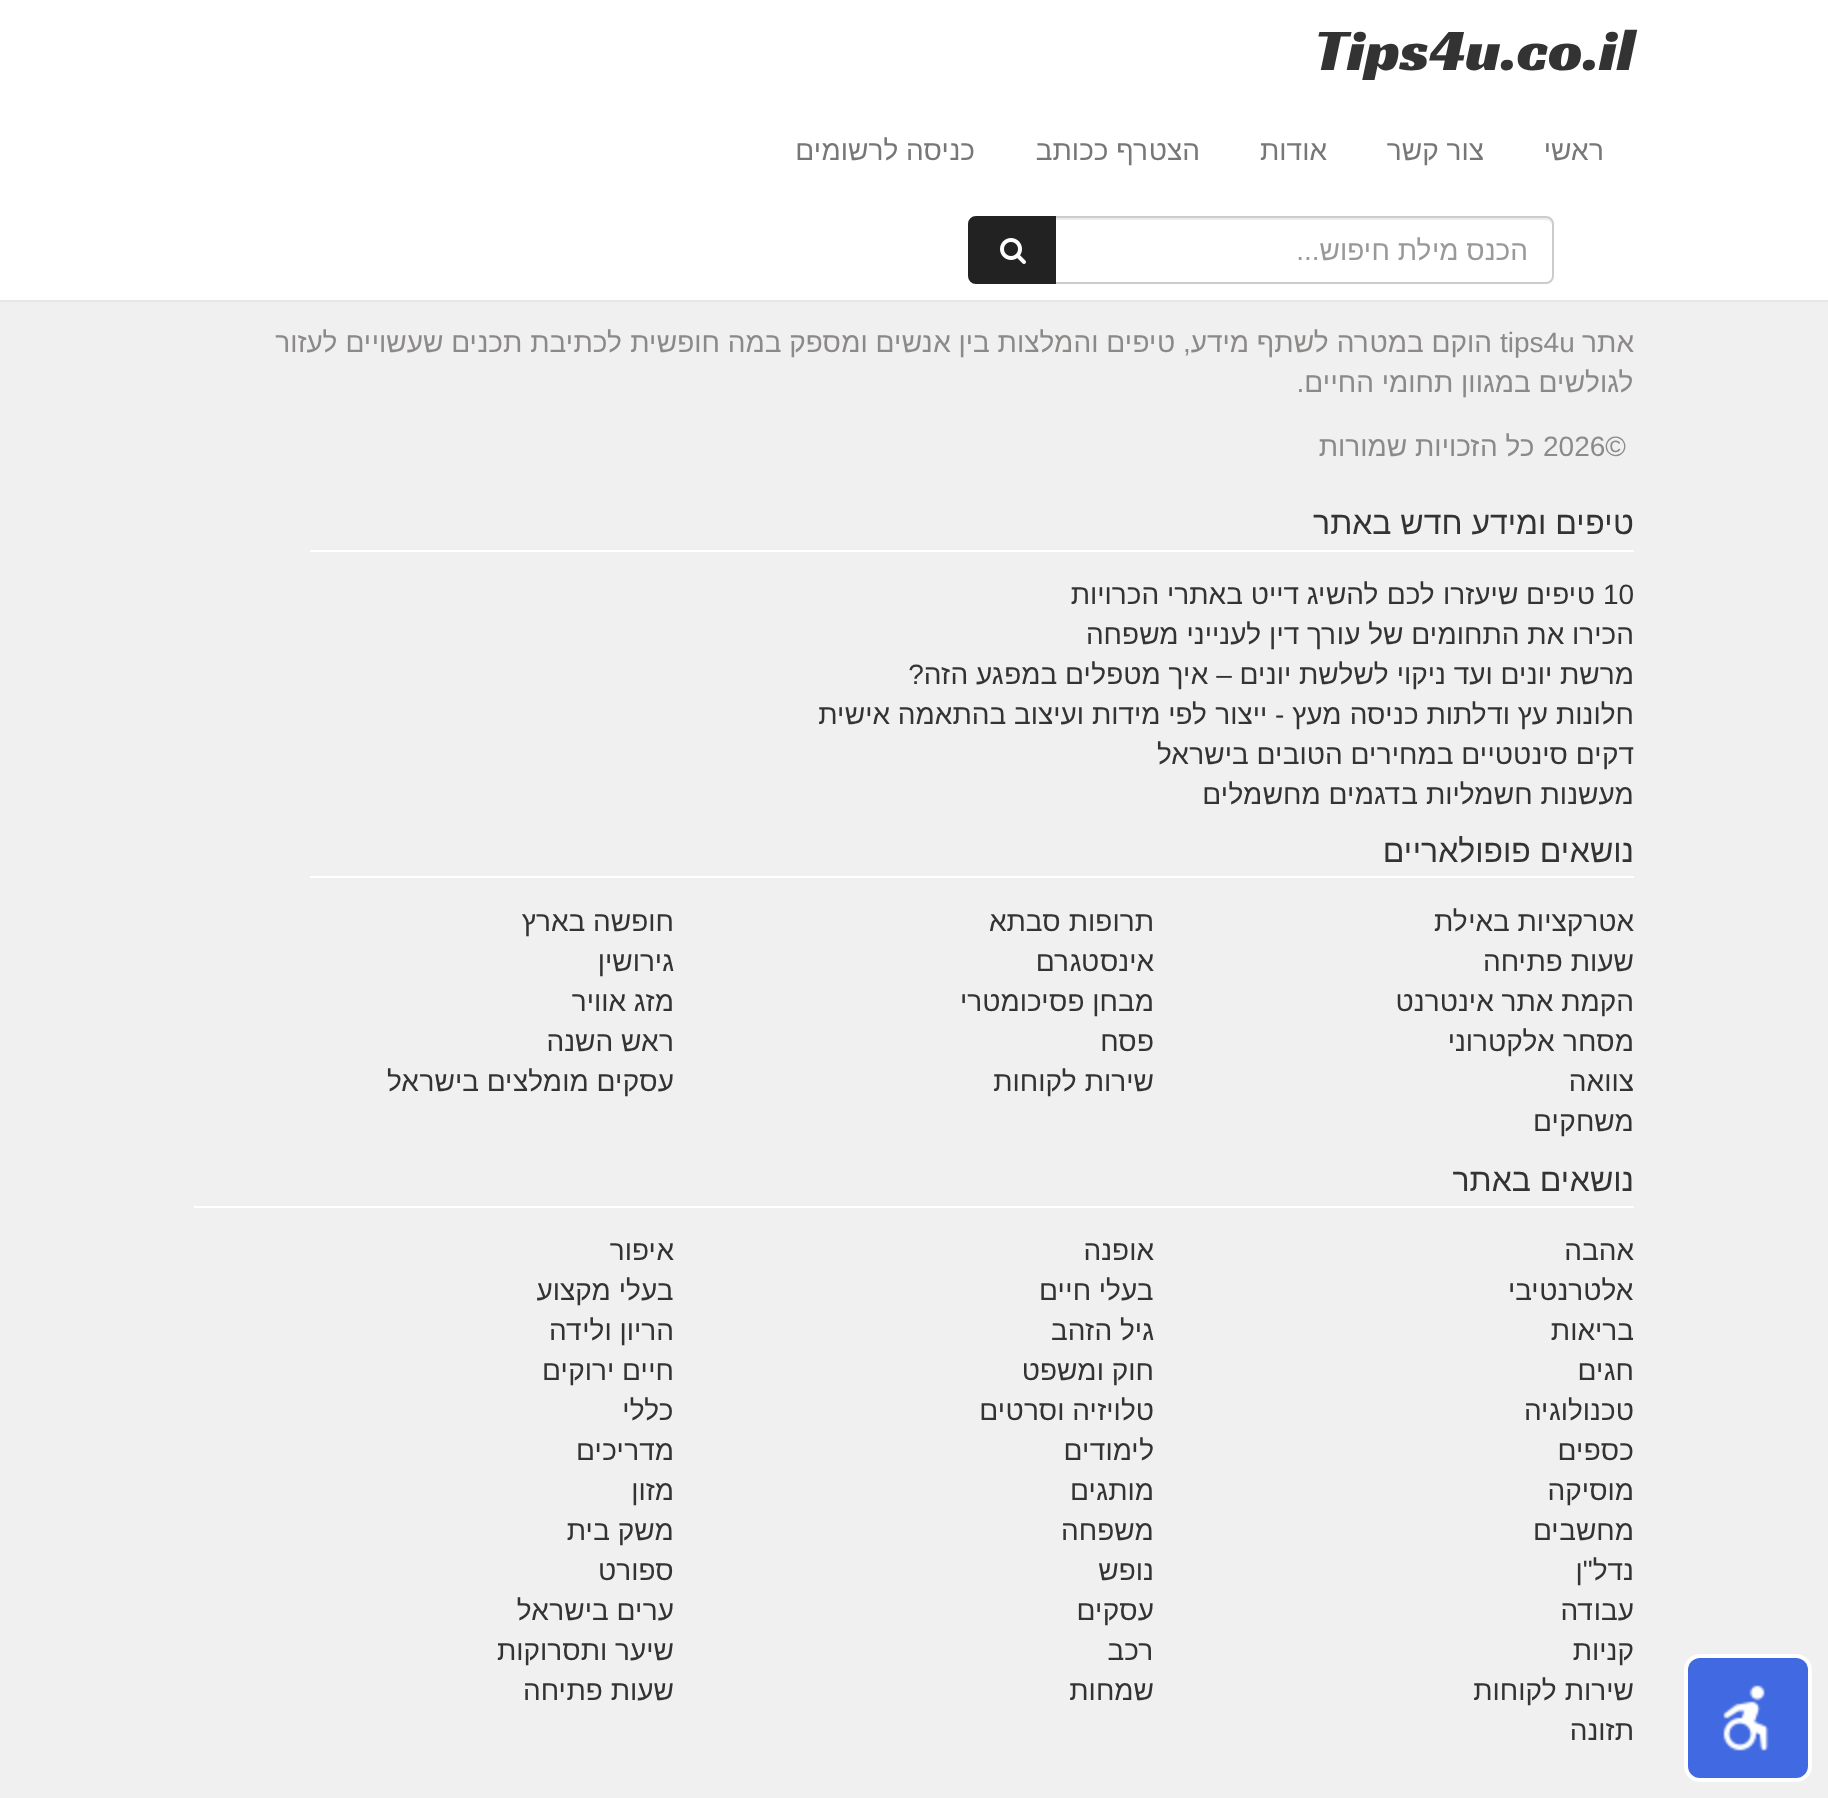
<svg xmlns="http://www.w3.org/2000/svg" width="1828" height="1798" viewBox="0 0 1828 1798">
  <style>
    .t1 { font: 60px Racing Sans One; fill: #333; }
    .t2 { font: 28px Arimo; direction: rtl; fill: #777; }
    .t3 { font: 28px Arimo; direction: rtl; fill: #999; }
    .t4 { font: 28px Arimo; direction: rtl; fill: #8c8989; }
    .t5 { font: 28px Arimo; fill: #8c8989; }
    .t6 { font: 32px Arimo; direction: rtl; fill: #333; }
    .t7 { font: 28px Arimo; fill: #333; }
    .t8 { font: 28px Arimo; direction: rtl; fill: #333; }
  </style>
  <rect width="100%" height="100%" fill="#f0f0f0"/>
  <rect x="0" y="0" width="1828" height="300" fill="#fff"/>
  <rect x="0" y="300" width="1828" height="2" fill="#e7e7e7"/>
  <text x="1314" y="70" class="t1">Tips4u.co.il</text>
  <text x="1604" y="160" class="t2">ראשי</text>
  <text x="1484" y="160" class="t2">צור קשר</text>
  <text x="1327" y="160" class="t2">אודות</text>
  <text x="1200" y="160" class="t2">הצטרף ככותב</text>
  <text x="975" y="160" class="t2">כניסה לרשומים</text>
  <path d="M1056 220H1546C1549 220 1552 223 1552 226C1552 222 1551 218 1546 218H1056Z" fill="#ececec"/>
  <path d="M1055 217H1546C1550 217 1553 220 1553 224V276C1553 280 1550 283 1546 283H1055Z" fill="none" stroke="#ccc" stroke-width="2"/>
  <text x="1528" y="260" class="t3">הכנס מילת חיפוש...</text>
  <path d="M976 217H1055V283H976C972 283 969 280 969 276V224C969 220 972 217 976 217Z" fill="#222" stroke="#222" stroke-width="2"/>
  <image x="1000" y="238" width="26" height="26" href="images/1.png"/>
  <rect x="1686" y="1656" width="124" height="124" rx="14" fill="none" stroke="#fff" stroke-width="4"/>
  <rect x="1688" y="1658" width="120" height="120" rx="12" fill="#4169e1"/>
  <image x="1723" y="1685" width="46" height="66" href="images/2.png"/>
  <text x="1634" y="352" class="t4">אתר</text>
  <text x="1500" y="352" class="t5">tips4u</text>
  <text x="1492" y="352" class="t4">הוקם במטרה לשתף מידע, טיפים והמלצות בין אנשים ומספק במה חופשית לכתיבת תכנים שעשויים לעזור</text>
  <text x="1634" y="392" class="t4">לגולשים במגוון תחומי החיים.</text>
  <text x="1543" y="456" class="t5">2026©</text>
  <text x="1535" y="456" class="t4">כל הזכויות שמורות</text>
  <rect x="310" y="550" width="1324" height="2" fill="#fff"/>
  <text x="1634" y="534" class="t6">טיפים ומידע חדש באתר</text>
  <text x="1603" y="604" class="t7">10</text>
  <text x="1595" y="604" class="t8">טיפים שיעזרו לכם להשיג דייט באתרי הכרויות</text>
  <text x="1634" y="644" class="t8">הכירו את התחומים של עורך דין לענייני משפחה</text>
  <text x="1634" y="684" class="t8">מרשת יונים ועד ניקוי לשלשת יונים – איך מטפלים במפגע הזה?</text>
  <text x="1634" y="724" class="t8">חלונות עץ ודלתות כניסה מעץ - ייצור לפי מידות ועיצוב בהתאמה אישית</text>
  <text x="1634" y="764" class="t8">דקים סינטטיים במחירים הטובים בישראל</text>
  <text x="1634" y="804" class="t8">מעשנות חשמליות בדגמים מחשמלים</text>
  <rect x="310" y="876" width="1324" height="2" fill="#fff"/>
  <text x="1634" y="862" class="t6">נושאים פופולאריים</text>
  <text x="1634" y="931" class="t8">אטרקציות באילת</text>
  <text x="1154" y="931" class="t8">תרופות סבתא</text>
  <text x="674" y="931" class="t8">חופשה בארץ</text>
  <text x="1634" y="971" class="t8">שעות פתיחה</text>
  <text x="1154" y="971" class="t8">אינסטגרם</text>
  <text x="674" y="971" class="t8">גירושין</text>
  <text x="1634" y="1011" class="t8">הקמת אתר אינטרנט</text>
  <text x="1154" y="1011" class="t8">מבחן פסיכומטרי</text>
  <text x="674" y="1011" class="t8">מזג אוויר</text>
  <text x="1634" y="1051" class="t8">מסחר אלקטרוני</text>
  <text x="1154" y="1051" class="t8">פסח</text>
  <text x="674" y="1051" class="t8">ראש השנה</text>
  <text x="1634" y="1091" class="t8">צוואה</text>
  <text x="1154" y="1091" class="t8">שירות לקוחות</text>
  <text x="674" y="1091" class="t8">עסקים מומלצים בישראל</text>
  <text x="1634" y="1131" class="t8">משחקים</text>
  <rect x="194" y="1206" width="1440" height="2" fill="#fff"/>
  <text x="1634" y="1191" class="t6">נושאים באתר</text>
  <text x="1634" y="1260" class="t8">אהבה</text>
  <text x="1154" y="1260" class="t8">אופנה</text>
  <text x="674" y="1260" class="t8">איפור</text>
  <text x="1634" y="1300" class="t8">אלטרנטיבי</text>
  <text x="1154" y="1300" class="t8">בעלי חיים</text>
  <text x="674" y="1300" class="t8">בעלי מקצוע</text>
  <text x="1634" y="1340" class="t8">בריאות</text>
  <text x="1154" y="1340" class="t8">גיל הזהב</text>
  <text x="674" y="1340" class="t8">הריון ולידה</text>
  <text x="1634" y="1380" class="t8">חגים</text>
  <text x="1154" y="1380" class="t8">חוק ומשפט</text>
  <text x="674" y="1380" class="t8">חיים ירוקים</text>
  <text x="1634" y="1420" class="t8">טכנולוגיה</text>
  <text x="1154" y="1420" class="t8">טלויזיה וסרטים</text>
  <text x="674" y="1420" class="t8">כללי</text>
  <text x="1634" y="1460" class="t8">כספים</text>
  <text x="1154" y="1460" class="t8">לימודים</text>
  <text x="674" y="1460" class="t8">מדריכים</text>
  <text x="1634" y="1500" class="t8">מוסיקה</text>
  <text x="1154" y="1500" class="t8">מותגים</text>
  <text x="674" y="1500" class="t8">מזון</text>
  <text x="1634" y="1540" class="t8">מחשבים</text>
  <text x="1154" y="1540" class="t8">משפחה</text>
  <text x="674" y="1540" class="t8">משק בית</text>
  <text x="1634" y="1580" class="t8">נדל"ן</text>
  <text x="1154" y="1580" class="t8">נופש</text>
  <text x="674" y="1580" class="t8">ספורט</text>
  <text x="1634" y="1620" class="t8">עבודה</text>
  <text x="1154" y="1620" class="t8">עסקים</text>
  <text x="674" y="1620" class="t8">ערים בישראל</text>
  <text x="1634" y="1660" class="t8">קניות</text>
  <text x="1154" y="1660" class="t8">רכב</text>
  <text x="674" y="1660" class="t8">שיער ותסרוקות</text>
  <text x="1634" y="1700" class="t8">שירות לקוחות</text>
  <text x="1154" y="1700" class="t8">שמחות</text>
  <text x="674" y="1700" class="t8">שעות פתיחה</text>
  <text x="1634" y="1740" class="t8">תזונה</text>
</svg>
